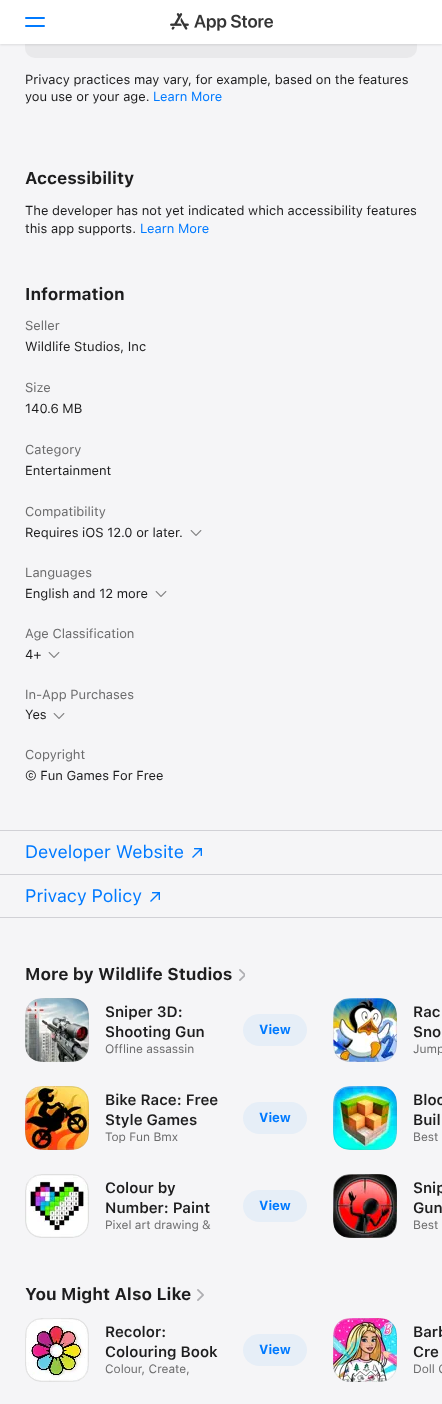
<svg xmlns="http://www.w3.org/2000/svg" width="442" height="1404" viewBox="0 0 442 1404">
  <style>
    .t1 { font: 13px SF; fill: #1d1d1e; }
    .t2 { font: 13px SF; fill: #007aff; }
    .t3 { font: bold 17px SF; fill: #1d1d1e; }
    .t4 { font: 13px SF; fill: #6c6c6d; }
    .t5 { font: 18px 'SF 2'; fill: #007aff; }
    .t6 { font: 600 15px SF; fill: #1d1d1e; }
    .t7 { font: 12px SF; fill: #6c6c6d; }
    .t8 { font: bold 13px SF; fill: #007aff; }
  </style>
  <rect width="100%" height="100%" fill="#f5f5f7"/>
  <rect x="25" y="-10" width="392" height="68" rx="10" fill="#e9e9eb"/>
  <rect x="0" y="1" width="442" height="44" fill="#0000001a" filter="blur(1px)"/>
  <rect x="0" y="0" width="442" height="44" fill="#fff"/>
  <rect x="25" y="17" width="20" height="2" rx="1" fill="#007aff"/>
  <rect x="25" y="25" width="20" height="2" rx="1" fill="#007aff"/>
  <image x="170" y="13" width="103" height="18" href="images/1.png"/>
  <text x="25" y="84" class="t1">Privacy practices may vary, for example, based on the features</text>
  <text x="25" y="101" class="t1">you use or your age.</text>
  <text x="153" y="101" class="t2">Learn More</text>
  <text x="25" y="184" class="t3">Accessibility</text>
  <text x="25" y="215" class="t1">The developer has not yet indicated which accessibility features</text>
  <text x="25" y="233" class="t1">this app supports.</text>
  <text x="140" y="233" class="t2">Learn More</text>
  <text x="25" y="300" class="t3">Information</text>
  <text x="25" y="330" class="t4">Seller</text>
  <text x="25" y="351" class="t1">Wildlife Studios, Inc</text>
  <text x="25" y="392" class="t4">Size</text>
  <text x="25" y="413" class="t1">140.6 MB</text>
  <text x="25" y="454" class="t4">Category</text>
  <text x="25" y="475" class="t1">Entertainment</text>
  <text x="25" y="516" class="t4">Compatibility</text>
  <text x="25" y="537" class="t1">Requires iOS 12.0 or later.</text>
  <image x="190" y="530" width="12" height="6" href="images/2.png"/>
  <text x="25" y="577" class="t4">Languages</text>
  <text x="25" y="598" class="t1">English and 12 more</text>
  <image x="155" y="591" width="12" height="6" href="images/2.png"/>
  <text x="25" y="638" class="t4">Age Classification</text>
  <text x="25" y="659" class="t1">4+</text>
  <image x="48" y="652" width="12" height="6" href="images/2.png"/>
  <text x="25" y="699" class="t4">In-App Purchases</text>
  <text x="25" y="719" class="t1">Yes</text>
  <image x="53" y="713" width="12" height="6" href="images/2.png"/>
  <text x="25" y="759" class="t4">Copyright</text>
  <text x="25" y="780" class="t1">© Fun Games For Free</text>
  <rect x="0" y="830" width="442" height="1" fill="#d1d1d6"/>
  <rect x="0" y="874" width="442" height="1" fill="#d1d1d6"/>
  <text x="25" y="858" class="t5">Developer Website</text>
  <image x="192" y="848" width="10" height="10" href="images/3.png"/>
  <rect x="0" y="917" width="442" height="1" fill="#d1d1d6"/>
  <text x="25" y="902" class="t5">Privacy Policy</text>
  <image x="150" y="892" width="10" height="10" href="images/3.png"/>
  <text x="25" y="980" class="t3">More by Wildlife Studios</text>
  <image x="239" y="969" width="6" height="12" href="images/4.png"/>
  <image x="25" y="998" width="64" height="64" href="images/5.png"/>
  <rect x="25.5" y="998.5" width="63" height="63" rx="15.5" fill="none" stroke="#8080801a"/>
  <text x="105" y="1017" class="t6">Sniper 3D:</text>
  <text x="105" y="1037" class="t6">Shooting Gun</text>
  <text x="105" y="1053" class="t7">Offline assassin</text>
  <rect x="243" y="1014" width="64" height="32" rx="16" fill="#e6eef7"/>
  <text x="259" y="1034" class="t8">View</text>
  <image x="333" y="998" width="64" height="64" href="images/6.png"/>
  <rect x="333.5" y="998.5" width="63" height="63" rx="15.5" fill="none" stroke="#8080801a"/>
  <text x="413" y="1017" class="t6">Rac</text>
  <text x="413" y="1037" class="t6">Sno</text>
  <text x="413" y="1053" class="t7">Jump</text>
  <image x="25" y="1086" width="64" height="64" href="images/7.png"/>
  <rect x="25.5" y="1086.5" width="63" height="63" rx="15.5" fill="none" stroke="#8080801a"/>
  <text x="105" y="1105" class="t6">Bike Race: Free</text>
  <text x="105" y="1125" class="t6">Style Games</text>
  <text x="105" y="1141" class="t7">Top Fun Bmx</text>
  <rect x="243" y="1102" width="64" height="32" rx="16" fill="#e6eef7"/>
  <text x="259" y="1122" class="t8">View</text>
  <image x="333" y="1086" width="64" height="64" href="images/8.png"/>
  <rect x="333.5" y="1086.5" width="63" height="63" rx="15.5" fill="none" stroke="#8080801a"/>
  <text x="413" y="1105" class="t6">Bloc</text>
  <text x="413" y="1125" class="t6">Buil</text>
  <text x="413" y="1141" class="t7">Best</text>
  <image x="25" y="1174" width="64" height="64" href="images/9.png"/>
  <rect x="25.5" y="1174.5" width="63" height="63" rx="15.5" fill="none" stroke="#8080801a"/>
  <text x="105" y="1193" class="t6">Colour by</text>
  <text x="105" y="1213" class="t6">Number: Paint</text>
  <text x="105" y="1229" class="t7">Pixel art drawing &amp;</text>
  <rect x="243" y="1190" width="64" height="32" rx="16" fill="#e6eef7"/>
  <text x="259" y="1210" class="t8">View</text>
  <image x="333" y="1174" width="64" height="64" href="images/10.png"/>
  <rect x="333.5" y="1174.5" width="63" height="63" rx="15.5" fill="none" stroke="#8080801a"/>
  <text x="413" y="1193" class="t6">Snip</text>
  <text x="413" y="1213" class="t6">Gun</text>
  <text x="413" y="1229" class="t7">Best</text>
  <text x="25" y="1300" class="t3">You Might Also Like</text>
  <image x="197" y="1289" width="7" height="12" href="images/11.png"/>
  <image x="25" y="1318" width="64" height="64" href="images/12.png"/>
  <rect x="25.5" y="1318.5" width="63" height="63" rx="15.5" fill="none" stroke="#8080801a"/>
  <text x="105" y="1337" class="t6">Recolor:</text>
  <text x="105" y="1357" class="t6">Colouring Book</text>
  <text x="105" y="1373" class="t7">Colour, Create,</text>
  <rect x="243" y="1334" width="64" height="32" rx="16" fill="#e6eef7"/>
  <text x="259" y="1354" class="t8">View</text>
  <image x="333" y="1318" width="64" height="64" href="images/13.png"/>
  <rect x="333.5" y="1318.5" width="63" height="63" rx="15.5" fill="none" stroke="#8080801a"/>
  <text x="413" y="1337" class="t6">Barb</text>
  <text x="413" y="1357" class="t6">Cre</text>
  <text x="413" y="1373" class="t7">Doll C</text>
</svg>
